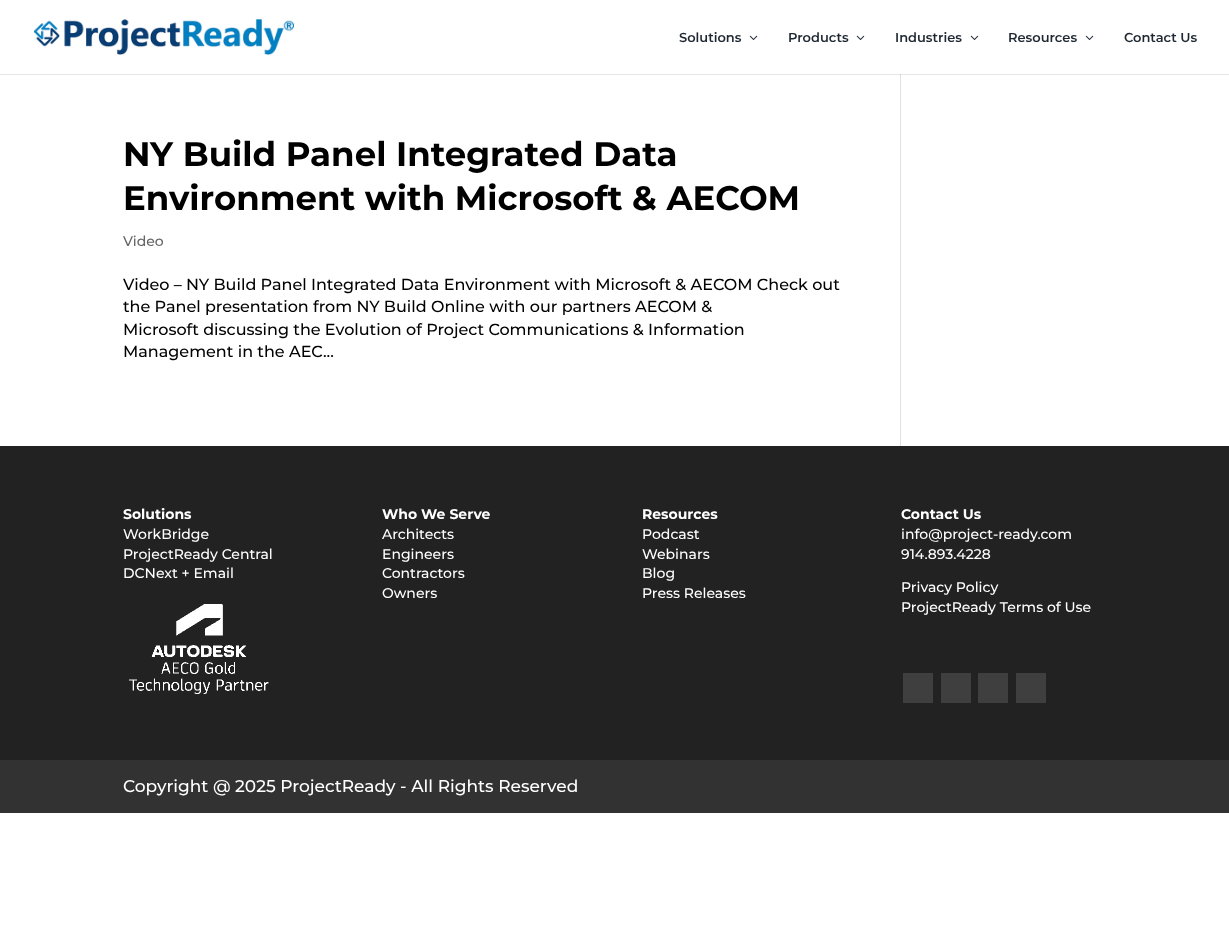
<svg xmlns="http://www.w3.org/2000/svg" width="1229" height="952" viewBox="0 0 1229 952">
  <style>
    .t1 { font: 600 13px Montserrat; fill: #1f2832; }
    .t2 { font: bold 34px Montserrat; fill: #000; }
    .t3 { font: 500 14px Montserrat; fill: #666; }
    .t4 { font: 500 16px Montserrat; fill: #000; }
    .t5 { font: bold 14px Montserrat; fill: #fff; }
    .t6 { font: 500 14px Montserrat; fill: #fff; }
    .t7 { font: 500 17px Montserrat; fill: #fff; }
  </style>
  <rect width="100%" height="100%" fill="#fff"/>
  <rect x="0" y="74" width="1229" height="1" fill="#e6e6e6"/>
  <image x="34" y="19" width="260" height="36" href="images/1.png"/>
  <text x="679" y="42" class="t1">Solutions</text>
  <image x="749" y="35" width="9" height="5" href="images/2.png"/>
  <text x="788" y="42" class="t1">Products</text>
  <image x="856" y="35" width="9" height="5" href="images/2.png"/>
  <text x="895" y="42" class="t1">Industries</text>
  <image x="970" y="35" width="9" height="5" href="images/2.png"/>
  <text x="1008" y="42" class="t1">Resources</text>
  <image x="1085" y="35" width="9" height="5" href="images/2.png"/>
  <text x="1124" y="42" class="t1">Contact Us</text>
  <text x="123" y="166" class="t2">NY Build Panel Integrated Data</text>
  <text x="123" y="210" class="t2">Environment with Microsoft &amp; AECOM</text>
  <text x="123" y="246" class="t3">Video</text>
  <text x="123" y="290" class="t4">Video – NY Build Panel Integrated Data Environment with Microsoft &amp; AECOM Check out</text>
  <text x="123" y="312" class="t4">the Panel presentation from NY Build Online with our partners AECOM &amp;</text>
  <text x="123" y="335" class="t4">Microsoft discussing the Evolution of Project Communications &amp; Information</text>
  <text x="123" y="357" class="t4">Management in the AEC...</text>
  <rect x="900" y="74" width="1" height="372" fill="#e2e2e2"/>
  <rect x="900" y="74" width="1" height="1" fill="#cbcbcb"/>
  <rect x="0" y="446" width="1229" height="314" fill="#222"/>
  <text x="123" y="519" class="t5">Solutions</text>
  <text x="123" y="539" class="t6">WorkBridge</text>
  <text x="123" y="559" class="t6">ProjectReady Central</text>
  <text x="123" y="578" class="t6">DCNext + Email</text>
  <image x="129" y="604" width="140" height="90" href="images/3.png"/>
  <text x="382" y="519" class="t5">Who We Serve</text>
  <text x="382" y="539" class="t6">Architects</text>
  <text x="382" y="559" class="t6">Engineers</text>
  <text x="382" y="578" class="t6">Contractors</text>
  <text x="382" y="598" class="t6">Owners</text>
  <text x="642" y="519" class="t5">Resources</text>
  <text x="642" y="539" class="t6">Podcast</text>
  <text x="642" y="559" class="t6">Webinars</text>
  <text x="642" y="578" class="t6">Blog</text>
  <text x="642" y="598" class="t6">Press Releases</text>
  <text x="901" y="519" class="t5">Contact Us</text>
  <text x="901" y="539" class="t6">info@project-ready.com</text>
  <text x="901" y="559" class="t6">914.893.4228</text>
  <text x="901" y="592" class="t6">Privacy Policy</text>
  <text x="901" y="612" class="t6">ProjectReady Terms of Use</text>
  <rect x="903" y="673" width="30" height="30" fill="#3f3f3f"/>
  <rect x="941" y="673" width="30" height="30" fill="#3f3f3f"/>
  <rect x="978" y="673" width="30" height="30" fill="#3f3f3f"/>
  <rect x="1016" y="673" width="30" height="30" fill="#3f3f3f"/>
  <rect x="0" y="760" width="1229" height="53" fill="#323232"/>
  <text x="123" y="792" class="t7">Copyright @ 2025 ProjectReady - All Rights Reserved</text>
</svg>
